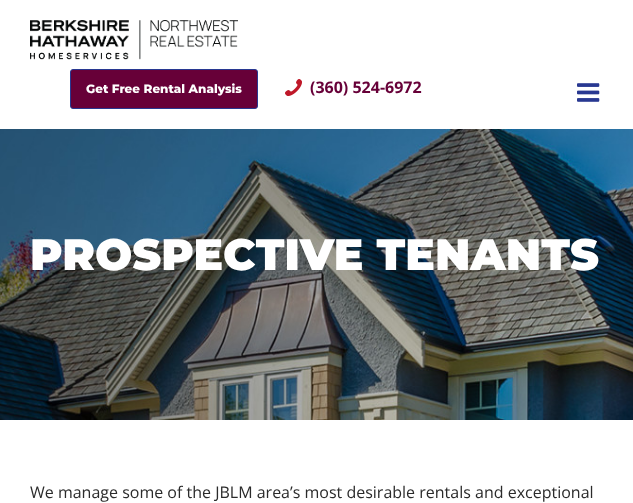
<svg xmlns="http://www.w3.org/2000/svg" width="633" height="503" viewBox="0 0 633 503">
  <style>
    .t1 { font: 100 12px 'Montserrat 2'; fill: #fff; }
    .t2 { font: bold 16px Open Sans; fill: #670038; }
    .t3 { font: 100 44px Montserrat; fill: #fff; }
    .t4 { font: 16px Open Sans; fill: #2b2b2b; }
  </style>
  <rect width="100%" height="100%" fill="#fff"/>
  <image x="30" y="20" width="208" height="40" href="images/1.png"/>
  <rect x="70.5" y="69.5" width="187" height="39" rx="2.5" fill="#670038" stroke="#283891"/>
  <text x="86" y="93" class="t1">Get Free Rental Analysis</text>
  <image x="285" y="79" width="17" height="17" href="images/2.png"/>
  <text x="310" y="93" class="t2">(360) 524-6972</text>
  <image x="577" y="83" width="23" height="19" href="images/3.png"/>
  <image x="0" y="129" width="633" height="291" href="images/4.png"/>
  <text x="30" y="270" class="t3">PROSPECTIVE TENANTS</text>
  <text x="30" y="498" class="t4">We manage some of the JBLM area’s most desirable rentals and exceptional</text>
</svg>
